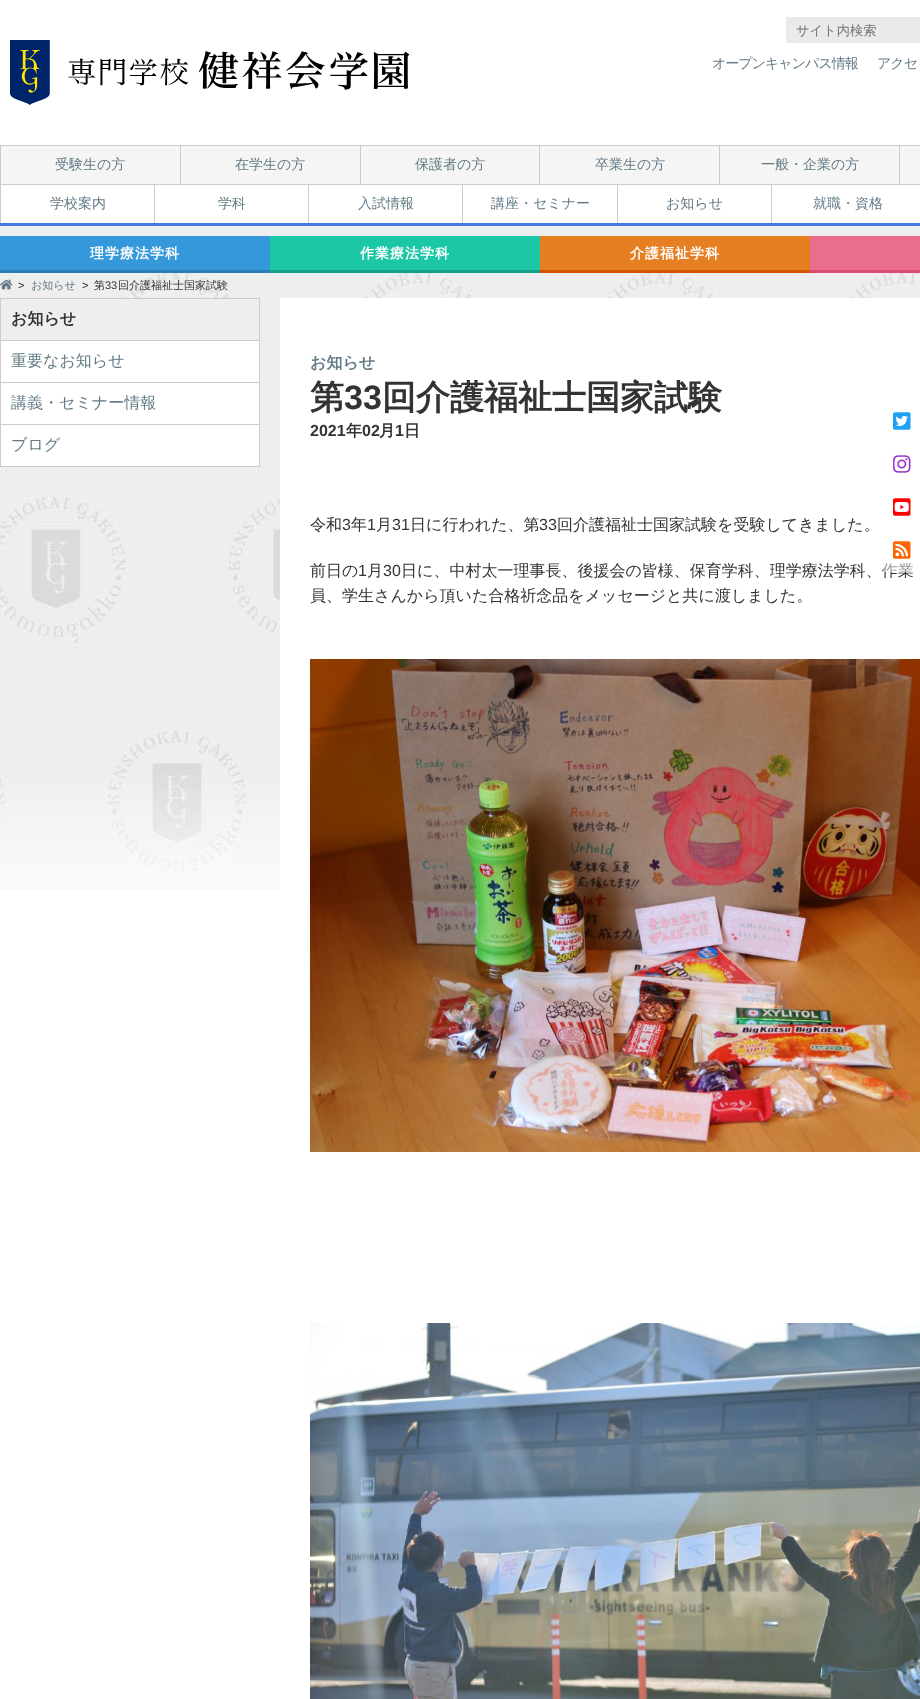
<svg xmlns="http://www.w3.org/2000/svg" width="920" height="1699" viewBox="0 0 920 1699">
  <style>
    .t1 { font: 500 13.25px WenQuanYi Zen Hei; fill: #757575; }
    .t2 { font: 500 14px WenQuanYi Zen Hei; letter-spacing: -1px; fill: #627a86; }
    .t3 { font: 500 14px WenQuanYi Zen Hei; fill: #627a86; }
    .t4 { font: bold 14px WenQuanYi Zen Hei; letter-spacing: 1px; fill: #fff; }
    .t5 { font: 11px Liberation Sans; fill: #333; }
    .t6 { font: 500 11px WenQuanYi Zen Hei; fill: #627a86; }
    .t7 { font: 500 11px WenQuanYi Zen Hei; fill: #333; }
    .t8 { font: bold 16px WenQuanYi Zen Hei; fill: #333; }
    .t9 { font: 500 16px WenQuanYi Zen Hei; fill: #627a86; }
    .t10 { font: bold 16px WenQuanYi Zen Hei; fill: #627a86; }
    .t11 { font: bold 34px WenQuanYi Zen Hei; fill: #333; }
    .t12 { font: bold 34px Liberation Sans; fill: #333; }
    .t13 { font: bold 16px Liberation Sans; fill: #333; }
    .t14 { font: 500 16px WenQuanYi Zen Hei; fill: #333; }
    .t15 { font: 16px Liberation Sans; fill: #333; }
  </style>
  <rect width="100%" height="100%" fill="#fff"/>
  <rect x="0" y="223" width="920" height="3" fill="#4579e6"/>
  <image x="10" y="40" width="400" height="65" href="images/1.png"/>
  <rect x="786" y="17" width="134" height="26" fill="#eaeaea"/>
  <text x="796" y="35" class="t1">サイト内検索</text>
  <text x="712" y="68" class="t2">オープンキャンパス情報</text>
  <text x="877" y="68" class="t2">アクセ</text>
  <rect x="1" y="146" width="919" height="38" fill="#f5f5f5"/>
  <rect x="0" y="145" width="920" height="1" fill="#ccc"/>
  <rect x="0" y="184" width="920" height="1" fill="#ccc"/>
  <rect x="0" y="146" width="1" height="38" fill="#ccc"/>
  <rect x="180" y="146" width="1" height="38" fill="#ccc"/>
  <text x="55" y="169" class="t3">受験生の方</text>
  <rect x="360" y="146" width="1" height="38" fill="#ccc"/>
  <text x="235" y="169" class="t3">在学生の方</text>
  <rect x="539" y="146" width="1" height="38" fill="#ccc"/>
  <text x="415" y="169" class="t3">保護者の方</text>
  <rect x="719" y="146" width="1" height="38" fill="#ccc"/>
  <text x="595" y="169" class="t3">卒業生の方</text>
  <rect x="899" y="146" width="1" height="38" fill="#ccc"/>
  <text x="761" y="169" class="t3">一般・企業の方</text>
  <rect x="0" y="185" width="1" height="38" fill="#ccc"/>
  <rect x="154" y="185" width="1" height="38" fill="#ccc"/>
  <text x="50" y="208" class="t3">学校案内</text>
  <rect x="308" y="185" width="1" height="38" fill="#ccc"/>
  <text x="218" y="208" class="t3">学科</text>
  <rect x="462" y="185" width="1" height="38" fill="#ccc"/>
  <text x="358" y="208" class="t3">入試情報</text>
  <rect x="617" y="185" width="1" height="38" fill="#ccc"/>
  <text x="491" y="208" class="t3">講座・セミナー</text>
  <rect x="771" y="185" width="1" height="38" fill="#ccc"/>
  <text x="666" y="208" class="t3">お知らせ</text>
  <text x="813" y="208" class="t3">就職・資格</text>
  <image x="0" y="226" width="920" height="664" href="images/2.png"/>
  <rect x="0" y="236" width="270" height="34" fill="#3498db"/>
  <rect x="0" y="270" width="270" height="3" fill="#2980b9"/>
  <text x="90" y="258" class="t4">理学療法学科</text>
  <rect x="270" y="236" width="270" height="34" fill="#1cc7a6"/>
  <rect x="270" y="270" width="270" height="3" fill="#16a085"/>
  <text x="360" y="258" class="t4">作業療法学科</text>
  <rect x="540" y="236" width="270" height="34" fill="#e67e22"/>
  <rect x="540" y="270" width="270" height="3" fill="#d35400"/>
  <text x="630" y="258" class="t4">介護福祉学科</text>
  <rect x="810" y="236" width="110" height="34" fill="#ea6d8f"/>
  <rect x="810" y="270" width="110" height="3" fill="#d94d6f"/>
  <image x="0" y="279" width="13" height="11" href="images/3.png"/>
  <text x="18" y="289" class="t5">&gt;</text>
  <text x="31" y="289" class="t6">お知らせ</text>
  <text x="82" y="289" class="t5">&gt;</text>
  <text x="94" y="289" class="t7">第</text>
  <text x="105" y="289" class="t5">33</text>
  <text x="118" y="289" class="t7">回介護福祉士国家試験</text>
  <rect x="1" y="299" width="248" height="41" fill="#eee"/>
  <rect x="0.5" y="298.5" width="259" height="42" fill="none" stroke="#ccc"/>
  <text x="11" y="324" class="t8">お知らせ</text>
  <rect x="1" y="341" width="258" height="41" fill="#fff"/>
  <rect x="259" y="341" width="1" height="126" fill="#ccc"/>
  <rect x="0" y="382" width="260" height="1" fill="#ccc"/>
  <rect x="0" y="341" width="1" height="42" fill="#ccc"/>
  <text x="11" y="366" class="t9">重要なお知らせ</text>
  <rect x="1" y="383" width="258" height="41" fill="#fff"/>
  <rect x="0" y="424" width="260" height="1" fill="#ccc"/>
  <rect x="0" y="383" width="1" height="42" fill="#ccc"/>
  <text x="11" y="408" class="t9">講義・セミナー情報</text>
  <rect x="1" y="425" width="258" height="41" fill="#fff"/>
  <rect x="0" y="466" width="260" height="1" fill="#ccc"/>
  <rect x="0" y="425" width="1" height="42" fill="#ccc"/>
  <text x="11" y="450" class="t9">ブログ</text>
  <rect x="280" y="298" width="640" height="592" fill="#fff"/>
  <text x="310" y="368" class="t10">お知らせ</text>
  <text x="310" y="409" class="t11">第</text>
  <text x="344" y="409" class="t12">33</text>
  <text x="382" y="409" class="t11">回介護福祉士国家試験</text>
  <text x="310" y="436" class="t13">2021</text>
  <text x="346" y="436" class="t8">年</text>
  <text x="362" y="436" class="t13">02</text>
  <text x="379" y="436" class="t8">月</text>
  <text x="395" y="436" class="t13">1</text>
  <text x="404" y="436" class="t8">日</text>
  <text x="310" y="530" class="t14">令和</text>
  <text x="342" y="530" class="t15">3</text>
  <text x="351" y="530" class="t14">年</text>
  <text x="367" y="530" class="t15">1</text>
  <text x="376" y="530" class="t14">月</text>
  <text x="392" y="530" class="t15">31</text>
  <text x="410" y="530" class="t14">日に行われた、第</text>
  <text x="539" y="530" class="t15">33</text>
  <text x="557" y="530" class="t14">回介護福祉士国家試験を受験してきました。</text>
  <text x="310" y="576" class="t14">前日の</text>
  <text x="358" y="576" class="t15">1</text>
  <text x="367" y="576" class="t14">月</text>
  <text x="383" y="576" class="t15">30</text>
  <text x="401" y="576" class="t14">日に、中村太一理事長、後援会の皆様、保育学科、理学療法学科、作業</text>
  <text x="310" y="601" class="t14">員、学生さんから頂いた合格祈念品をメッセージと共に渡しました。</text>
  <image x="310" y="659" width="610" height="493" href="images/4.png"/>
  <image x="310" y="1323" width="610" height="376" href="images/5.png"/>
  <rect x="883" y="562" width="30" height="10" fill="#ffffff80"/>
  <image x="893" y="412" width="18" height="18" href="images/6.png"/>
  <image x="893" y="455" width="18" height="18" href="images/7.png"/>
  <image x="893" y="498" width="18" height="18" href="images/8.png"/>
  <image x="893" y="541" width="18" height="18" href="images/9.png"/>
</svg>
